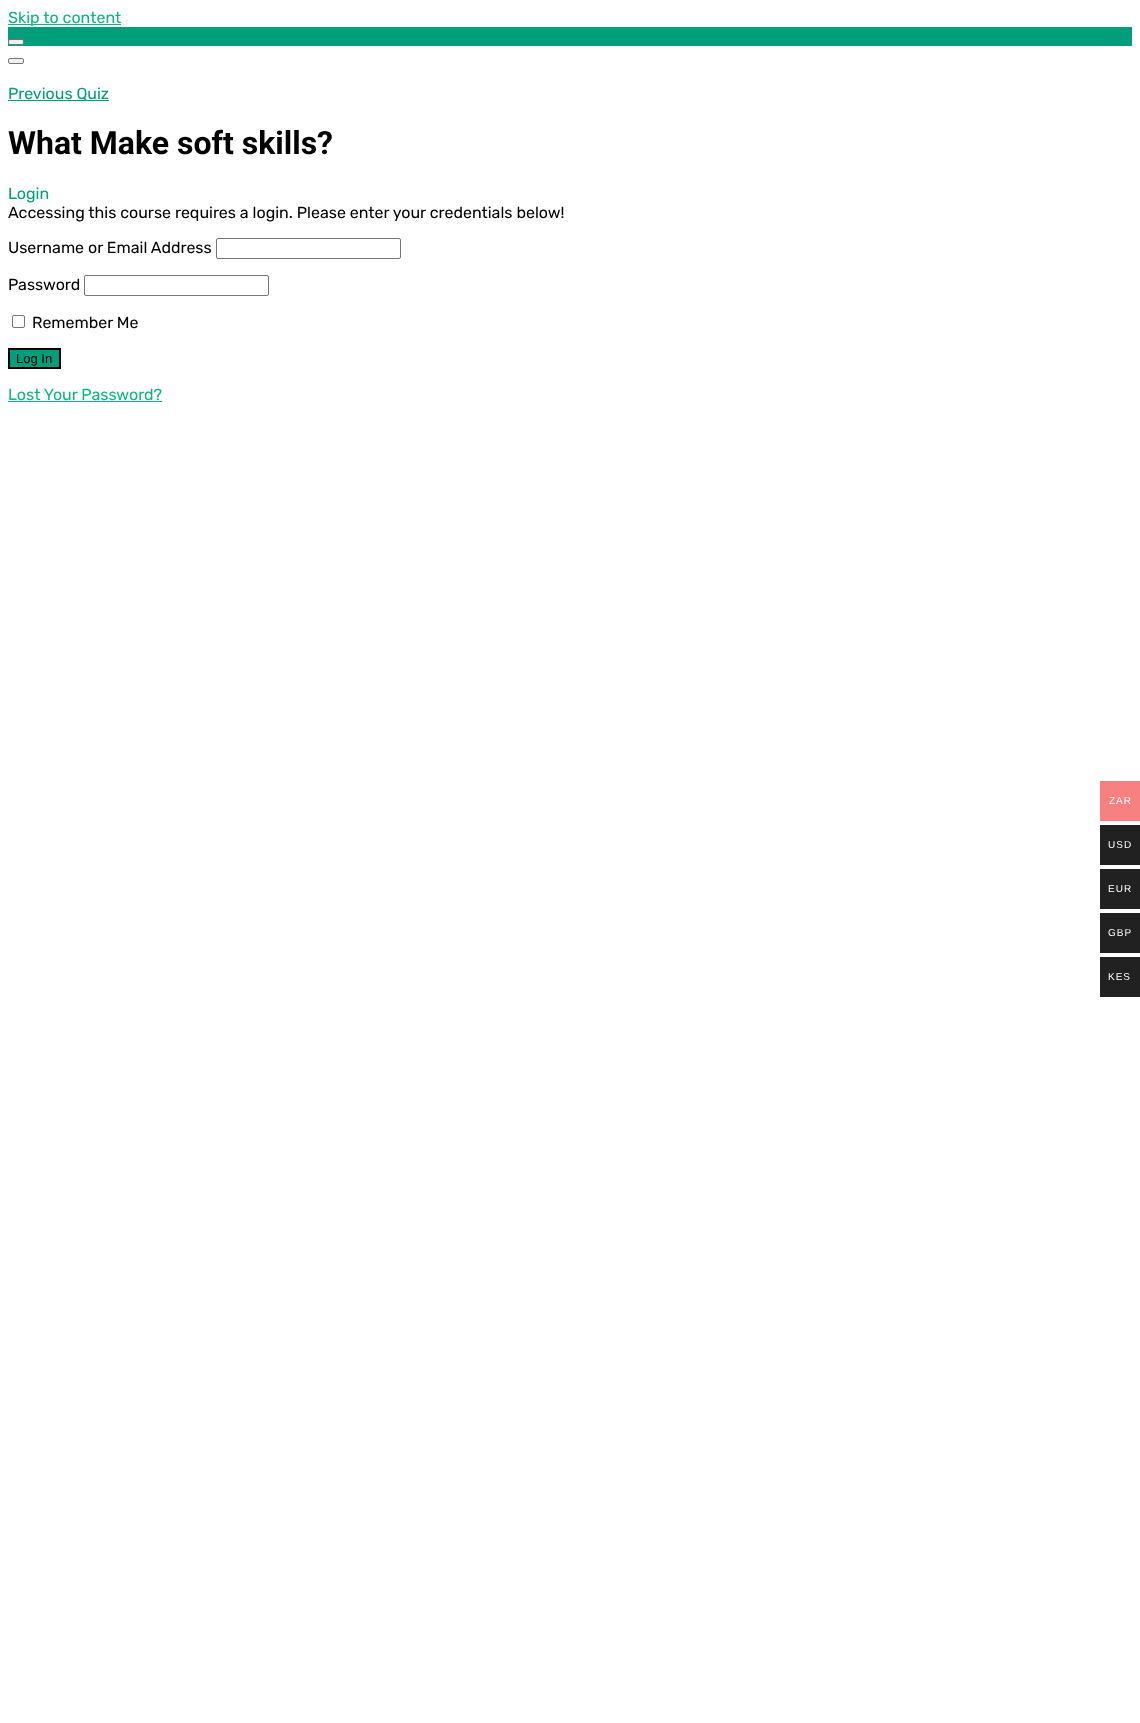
<svg xmlns="http://www.w3.org/2000/svg" width="1140" height="1723" viewBox="0 0 1140 1723">
  <style>
    .t1 { font: 16px Rubik; fill: #0eb582; }
    .t2 { font: 16px Rubik; fill: #019e7c; }
    .t3 { font: bold 32px Roboto; fill: #000; }
    .t4 { font: 16px Rubik; fill: #000; }
    .t5 { font: 13px Liberation Sans; fill: #000; }
    .t6 { font: 10px Liberation Sans; letter-spacing: 1px; fill: #fff; }
  </style>
  <rect width="100%" height="100%" fill="#fff"/>
  <rect x="8" y="24" width="113" height="1" fill="#0eb582"/>
  <text x="8" y="23" class="t1">Skip to content</text>
  <rect x="8" y="27" width="1124" height="19" fill="#019e7c"/>
  <rect x="8.5" y="39.5" width="15" height="5" rx="1.5" fill="#efefef" stroke="#767676"/>
  <rect x="8.5" y="58.5" width="15" height="5" rx="1.5" fill="#efefef" stroke="#767676"/>
  <rect x="8" y="100" width="101" height="1" fill="#019e7c"/>
  <text x="8" y="99" class="t2">Previous Quiz</text>
  <text x="8" y="154" class="t3">What Make soft skills?</text>
  <text x="8" y="199" class="t2">Login</text>
  <text x="8" y="218" class="t4">Accessing this course requires a login. Please enter your credentials below!</text>
  <text x="8" y="253" class="t4">Username or Email Address</text>
  <rect x="216.5" y="238.5" width="184" height="20" rx="1.5" fill="none" stroke="#767676"/>
  <text x="8" y="290" class="t4">Password</text>
  <rect x="84.5" y="275.5" width="184" height="20" rx="1.5" fill="none" stroke="#767676"/>
  <rect x="12.5" y="315.5" width="12" height="12" rx="1.5" fill="none" stroke="#767676"/>
  <text x="32" y="328" class="t4">Remember Me</text>
  <rect x="9" y="349" width="51" height="19" fill="#019e7c" stroke="#000" stroke-width="2"/>
  <text x="16" y="363" class="t5">Log In</text>
  <text x="8" y="400" class="t1">Lost Your Password?</text>
  <rect x="8" y="401" width="154" height="1" fill="#0eb582"/>
  <rect x="1100" y="781" width="40" height="40" fill="#f78080"/>
  <text x="1109" y="804" class="t6">ZAR</text>
  <rect x="1100" y="825" width="40" height="40" fill="#212121"/>
  <text x="1108" y="848" class="t6">USD</text>
  <rect x="1100" y="869" width="40" height="40" fill="#212121"/>
  <text x="1108" y="892" class="t6">EUR</text>
  <rect x="1100" y="913" width="40" height="40" fill="#212121"/>
  <text x="1108" y="936" class="t6">GBP</text>
  <rect x="1100" y="957" width="40" height="40" fill="#212121"/>
  <text x="1108" y="980" class="t6">KES</text>
</svg>
